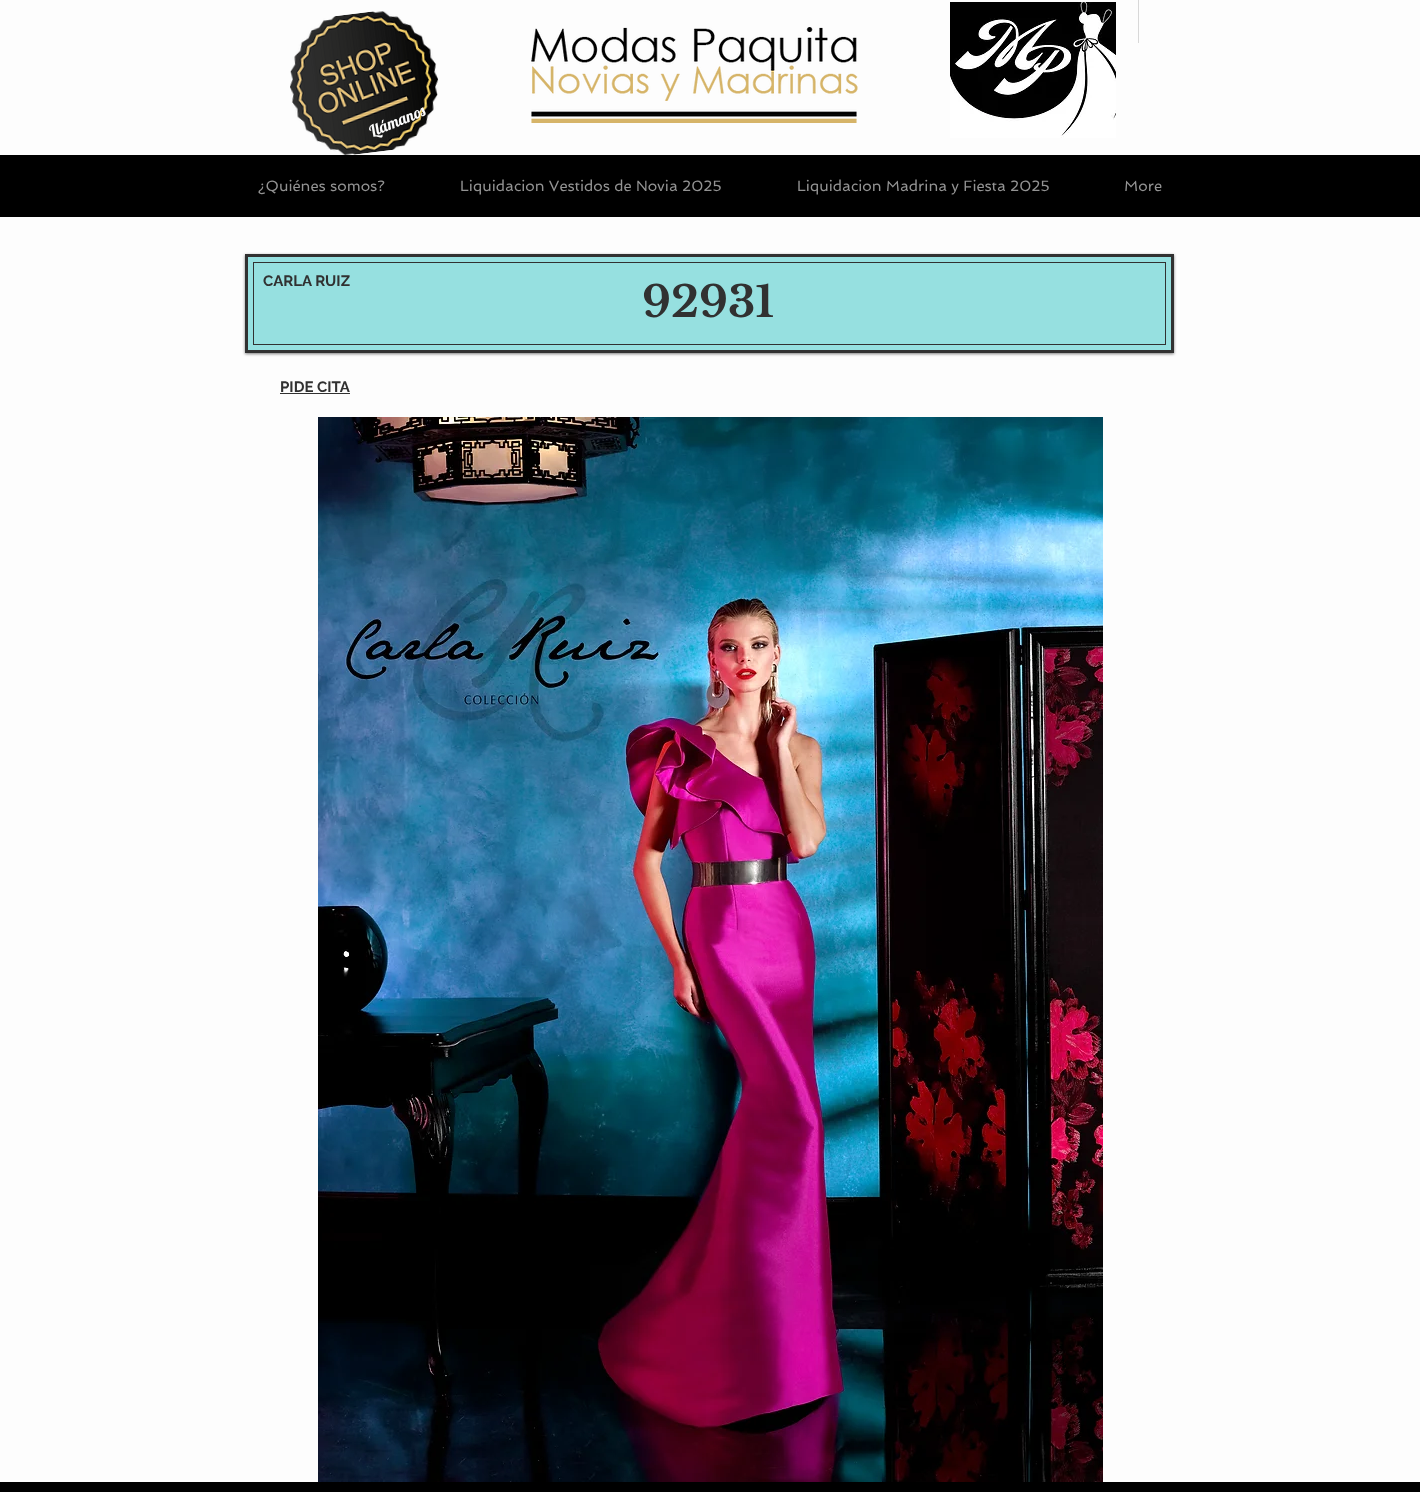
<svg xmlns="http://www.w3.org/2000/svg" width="1420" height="1492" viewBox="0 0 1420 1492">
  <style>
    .t1 { font: 16px Lobster; fill: #fdfdfd; }
    .t2 { font: 15px Spinnaker; fill: #939393; }
    .t3 { font: bold 15px Raleway; fill: #313131; }
    .t4 { font: bold 43px Libre Baskerville; fill: #313131; }
  </style>
  <rect width="100%" height="100%" fill="#fdfdfd"/>
  <image x="290" y="11" width="149" height="144" href="images/1.png"/>
  <image x="531" y="27" width="327" height="96" href="images/2.png"/>
  <image x="950" y="2" width="166" height="136" href="images/3.png"/>
  <rect x="1138" y="0" width="1" height="43" fill="#d8d8d8"/>
  <text x="372" y="137" transform="rotate(-21.9 372 137)" class="t1">Llámanos</text>
  <rect x="0" y="155" width="1420" height="62" fill="#000"/>
  <text x="258" y="191" class="t2">¿Quiénes somos?</text>
  <text x="460" y="191" class="t2">Liquidacion Vestidos de Novia 2025</text>
  <text x="797" y="191" class="t2">Liquidacion Madrina y Fiesta 2025</text>
  <text x="1124" y="191" class="t2">More</text>
  <rect x="245" y="255" width="929" height="99" fill="#00000080" filter="blur(1.5px)"/>
  <rect x="246.5" y="255.5" width="926" height="96" fill="#96e0e0" stroke="#313131" stroke-width="3"/>
  <rect x="253.5" y="262.5" width="912" height="82" fill="none" stroke="#313131"/>
  <text x="263" y="286" class="t3">CARLA RUIZ</text>
  <text x="642" y="317" class="t4">92931</text>
  <text x="280" y="392" class="t3">PIDE CITA</text>
  <rect x="280" y="393" width="70" height="1" fill="#313131"/>
  <image x="318" y="417" width="785" height="1065" href="images/4.png"/>
  <rect x="0" y="1482" width="1420" height="10" fill="#000"/>
</svg>
